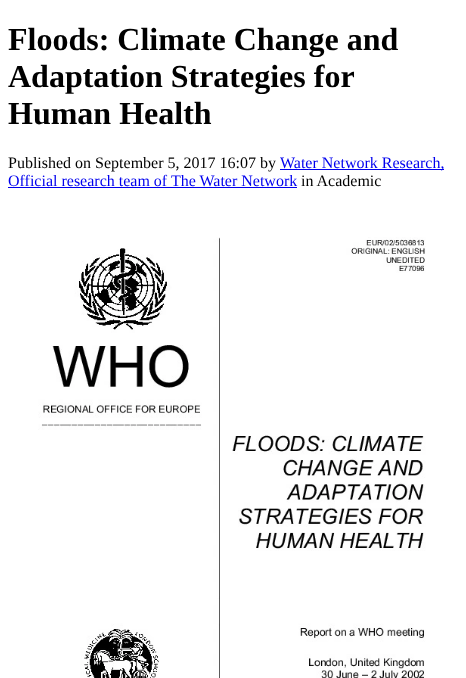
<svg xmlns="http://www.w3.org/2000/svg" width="466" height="678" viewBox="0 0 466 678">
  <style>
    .t1 { font: bold 32px Liberation Serif; fill: #000; }
    .t2 { font: 16px Liberation Serif; fill: #000; }
    .t3 { font: 16px Liberation Serif; fill: #00e; }
  </style>
  <rect width="100%" height="100%" fill="#fff"/>
  <text x="8" y="50" class="t1">Floods: Climate Change and</text>
  <text x="8" y="87" class="t1">Adaptation Strategies for</text>
  <text x="8" y="124" class="t1">Human Health</text>
  <text x="8" y="168" class="t2">Published on September 5, 2017 16:07 by</text>
  <rect x="280" y="169" width="164" height="1" fill="#00e"/>
  <text x="280" y="168" class="t3">Water Network Research,</text>
  <text x="8" y="186" class="t3">Official research team of The Water Network</text>
  <rect x="8" y="187" width="289" height="1" fill="#00e"/>
  <text x="301" y="186" class="t2">in Academic</text>
  <image x="38" y="237" width="388" height="441" href="images/1.png"/>
</svg>
